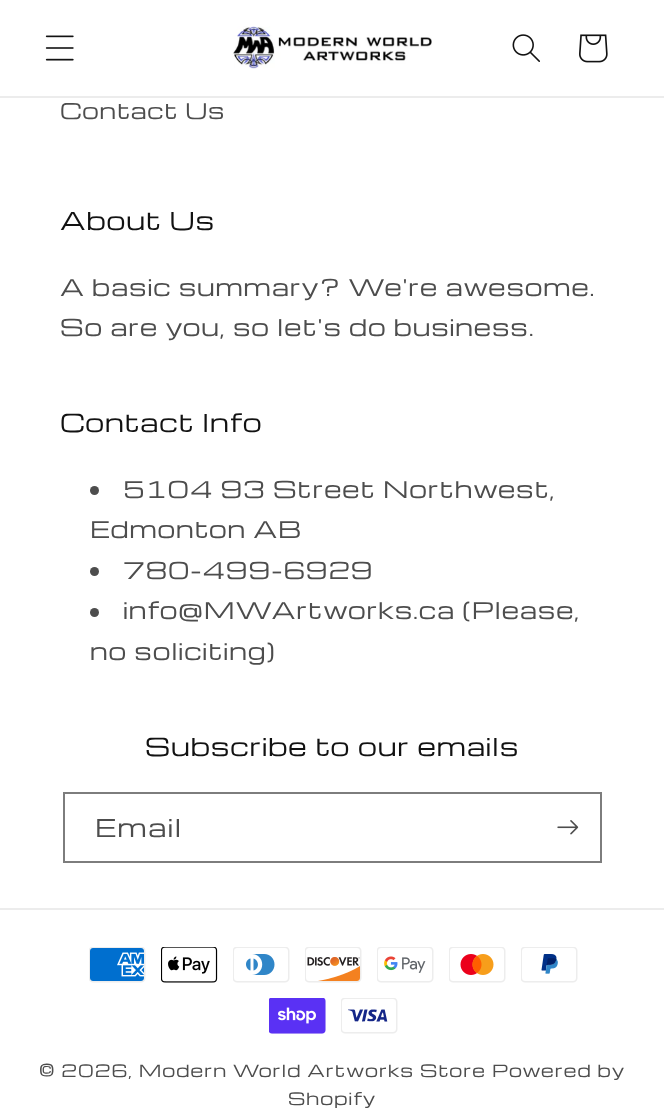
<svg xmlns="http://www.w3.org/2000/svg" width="664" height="1110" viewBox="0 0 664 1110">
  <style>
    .t1 { font: 21px Michroma; letter-spacing: 0.9px; fill: #4d4d4d; }
    .t2 { font: 24px Michroma; letter-spacing: 0.9px; fill: #121212; }
    .t3 { font: 22.5px Michroma; letter-spacing: 0.9px; fill: #4d4d4d; }
    .t4 { font: 24px Michroma; letter-spacing: 1.5px; fill: #4d4d4d; }
    .t5 { font: 16.5px Michroma; letter-spacing: 1.05px; fill: #4d4d4d; }
  </style>
  <rect width="100%" height="100%" fill="#fff"/>
  <rect x="0" y="96" width="664" height="2" fill="#ececec"/>
  <image x="45" y="35" width="29" height="26" href="images/1.png"/>
  <image x="232" y="26" width="200" height="43" href="images/2.png"/>
  <image x="512" y="34" width="28" height="28" href="images/3.png"/>
  <image x="579" y="34" width="29" height="29" href="images/4.png"/>
  <text x="60" y="119" class="t1">Contact Us</text>
  <text x="60" y="230" class="t2">About Us</text>
  <text x="60" y="296" class="t3">A basic summary? We're awesome.</text>
  <text x="60" y="336" class="t3">So are you, so let's do business.</text>
  <text x="60" y="432" class="t2">Contact Info</text>
  <circle cx="94.5" cy="490.5" r="4.5" fill="#4d4d4d"/>
  <text x="123" y="498" class="t3">5104 93 Street Northwest,</text>
  <text x="90" y="538" class="t3">Edmonton AB</text>
  <circle cx="94.5" cy="571.5" r="4.5" fill="#4d4d4d"/>
  <text x="123" y="579" class="t3">780-499-6929</text>
  <circle cx="94.5" cy="612.5" r="4.5" fill="#4d4d4d"/>
  <text x="123" y="619" class="t3">info@MWArtworks.ca (Please,</text>
  <text x="90" y="660" class="t3">no soliciting)</text>
  <text x="145" y="756" class="t2">Subscribe to our emails</text>
  <rect x="64" y="793" width="537" height="69" fill="none" stroke="#7d7d7d" stroke-width="2"/>
  <text x="95" y="837" class="t4">Email</text>
  <image x="557" y="820" width="22" height="15" href="images/5.png"/>
  <rect x="0" y="908" width="664" height="2" fill="#ececec"/>
  <image x="89" y="947" width="57" height="36" href="images/6.png"/>
  <image x="161" y="947" width="57" height="36" href="images/7.png"/>
  <image x="233" y="947" width="57" height="36" href="images/8.png"/>
  <image x="305" y="947" width="57" height="36" href="images/9.png"/>
  <image x="377" y="947" width="57" height="36" href="images/10.png"/>
  <image x="449" y="947" width="57" height="36" href="images/11.png"/>
  <image x="521" y="947" width="57" height="36" href="images/12.png"/>
  <image x="269" y="998" width="57" height="36" href="images/13.png"/>
  <image x="341" y="998" width="57" height="36" href="images/14.png"/>
  <text x="39" y="1077" class="t5">© 2026, Modern World Artworks Store</text>
  <text x="492" y="1077" class="t5">Powered by</text>
  <text x="288" y="1105" class="t5">Shopify</text>
</svg>
